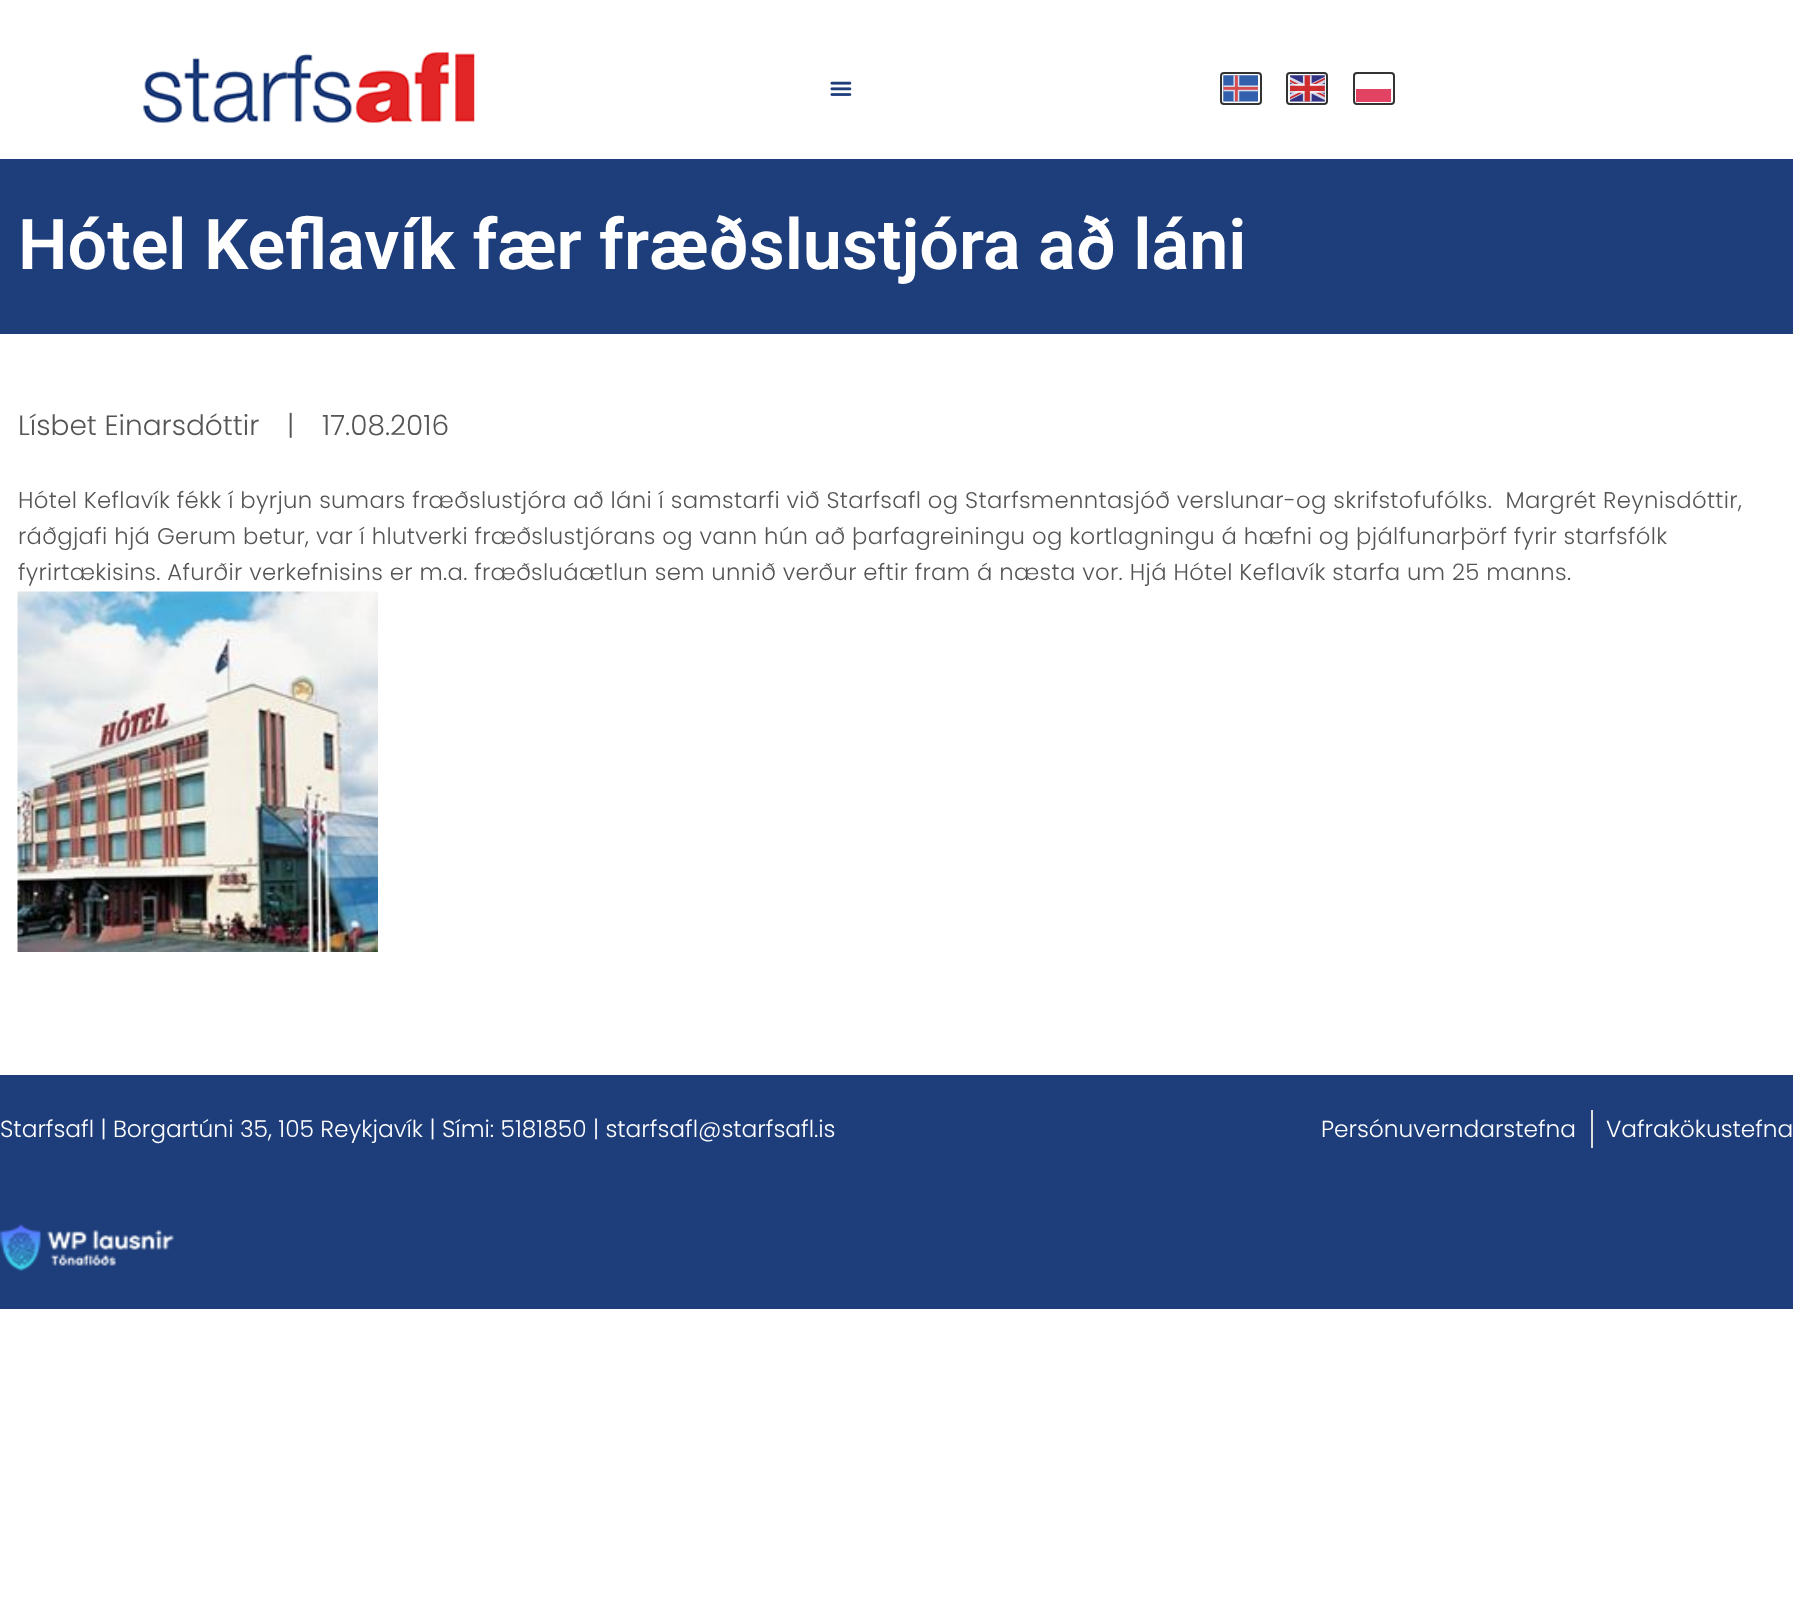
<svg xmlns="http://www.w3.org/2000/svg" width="1793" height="1599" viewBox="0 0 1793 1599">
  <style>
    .t1 { font: 600 70px Roboto; fill: #fff; }
    .t2 { font: 300 28px Poppins; fill: #555; }
    .t3 { font: 300 22.75px Poppins; letter-spacing: 0.35px; fill: #555; }
    .t4 { font: 300 23.35px Poppins; fill: #fff; }
    .t5 { font: 300 23.25px Poppins; fill: #fff; }
  </style>
  <rect width="100%" height="100%" fill="#fff"/>
  <image x="143" y="52" width="332" height="71" href="images/1.png"/>
  <image x="830" y="81" width="22" height="15" href="images/2.png"/>
  <rect x="1221" y="73" width="40" height="31" rx="3" fill="none" stroke="#333" stroke-width="2"/>
  <image x="1223" y="75" width="35" height="27" href="images/3.png"/>
  <rect x="1287" y="73" width="40" height="31" rx="3" fill="none" stroke="#333" stroke-width="2"/>
  <image x="1290" y="75" width="35" height="27" href="images/4.png"/>
  <rect x="1354" y="73" width="40" height="31" rx="3" fill="none" stroke="#333" stroke-width="2"/>
  <rect x="1356" y="89" width="35" height="13" fill="#e34363"/>
  <rect x="0" y="159" width="1793" height="175" fill="#1e3e7b"/>
  <text x="18" y="269" class="t1">Hótel Keflavík fær fræðslustjóra að láni</text>
  <text x="18" y="435" class="t2">Lísbet Einarsdóttir</text>
  <text x="287" y="435" class="t2">|</text>
  <text x="322" y="435" class="t2">17.08.2016</text>
  <text x="18" y="508" class="t3" xml:space="preserve">Hótel Keflavík fékk í byrjun sumars fræðslustjóra að láni í samstarfi við Starfsafl og Starfsmenntasjóð verslunar-og skrifstofufólks.  Margrét Reynisdóttir,</text>
  <text x="18" y="544" class="t3">ráðgjafi hjá Gerum betur, var í hlutverki fræðslustjórans og vann hún að þarfagreiningu og kortlagningu á hæfni og þjálfunarþörf fyrir starfsfólk</text>
  <text x="18" y="580" class="t3">fyrirtækisins. Afurðir verkefnisins er m.a. fræðsluáætlun sem unnið verður eftir fram á næsta vor. Hjá Hótel Keflavík starfa um 25 manns.</text>
  <image x="17" y="591" width="361" height="361" href="images/5.png"/>
  <rect x="0" y="1075" width="1793" height="234" fill="#1e3e7b"/>
  <text x="0" y="1137" class="t4">Starfsafl | Borgartúni 35, 105 Reykjavík | Sími: 5181850 | starfsafl@starfsafl.is</text>
  <text x="1321" y="1137" class="t5">Persónuverndarstefna</text>
  <rect x="1591" y="1110" width="2" height="38" fill="#ddd"/>
  <text x="1606" y="1137" class="t5">Vafrakökustefna</text>
  <image x="0" y="1223" width="174" height="48" href="images/6.png"/>
</svg>
